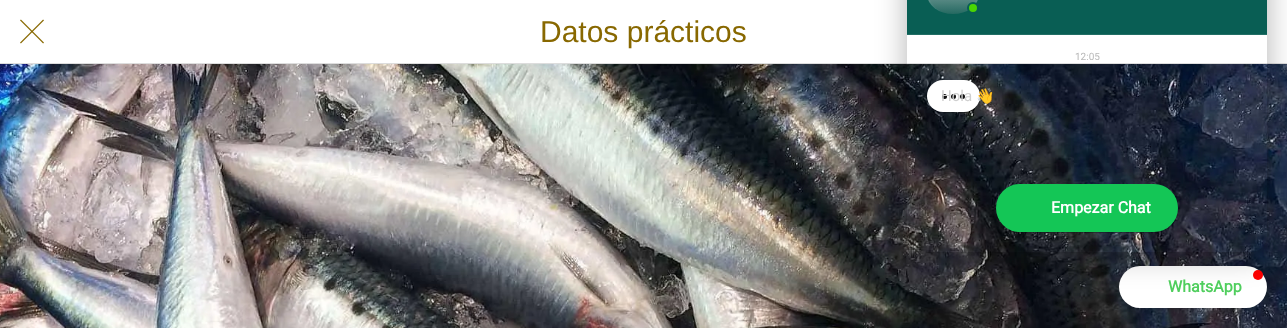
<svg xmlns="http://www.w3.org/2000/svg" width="1287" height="328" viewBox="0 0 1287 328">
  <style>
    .t1 { font: 30px Liberation Sans; fill: #886800; }
    .t2 { font: 10px Roboto; fill: #b8b8b8; }
    .t3 { font: 15px Roboto; fill: #cfcfcf; }
    .t4 { font: 15px Noto Color Emoji; fill: #6e6e6d; }
    .t5 { font: bold 16px Roboto; fill: #fff; }
    .t6 { font: bold 16px Roboto; fill: #4fce5d; }
  </style>
  <defs>
    <clipPath id="clip1"><path d="M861 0H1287V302H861ZM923-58H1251C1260-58 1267-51 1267-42V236C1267 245 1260 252 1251 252H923C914 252 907 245 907 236V-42C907-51 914-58 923-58Z" clip-rule="evenodd"/></clipPath>
    <linearGradient id="g1" gradientUnits="userSpaceOnUse" x1="953" y1="-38" x2="953" y2="14"><stop offset="0" stop-color="#e5e5e5"/><stop offset="1" stop-color="#266e66"/></linearGradient>
  </defs>
  <rect width="100%" height="100%" fill="#fff"/>
  <rect x="0" y="63" width="1287" height="1" fill="#ddd"/>
  <image x="20" y="19" width="24" height="25" href="images/1.png"/>
  <text x="540" y="42" class="t1">Datos prácticos</text>
  <image x="0" y="64" width="1287" height="264" href="images/2.png"/>
  <rect x="1119" y="269" width="148" height="42" rx="21" fill="#00000026" filter="blur(6px)"/>
  <rect x="1119" y="266" width="148" height="42" rx="21" fill="#fff"/>
  <circle cx="1258" cy="275" r="5" fill="#f00"/>
  <g clip-path="url(#clip1)">
    <rect x="907" y="-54" width="360" height="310" rx="16" fill="#0000004d" filter="blur(15px)"/>
  </g>
  <rect x="907" y="0" width="360" height="34" fill="#095e54"/>
  <rect x="907" y="34" width="360" height="1" fill="#226e65"/>
  <rect x="927" y="-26" width="52" height="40" rx="26" fill="url(#g1)"/>
  <path d="M953-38C987-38 987 14 953 14C919 14 919-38 953-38Z" fill="#1111110d"/>
  <circle cx="973" cy="8" r="5" fill="#4ad504" stroke="#095e54" stroke-width="2"/>
  <text x="1075" y="60" class="t2">12:05</text>
  <path d="M927 96C927 104 932 111 940 113H967C975 111 980 104 980 96C980 105 973 112 964 112H943C934 112 927 105 927 96Z" fill="#00000026"/>
  <rect x="927" y="80" width="53" height="32" rx="16" fill="#fff"/>
  <circle cx="944.5" cy="96.5" r="2.5" fill="#111"/>
  <circle cx="953.5" cy="96.5" r="2.5" fill="#111"/>
  <circle cx="962.5" cy="96.5" r="2.5" fill="#111"/>
  <text x="941" y="101" class="t3">Hola</text>
  <text x="976" y="101" class="t4">👋</text>
  <path d="M996 208V209C996 222 1007 233 1020 233H1154C1167 233 1178 222 1178 209V208C1178 222 1167 232 1154 232H1020C1007 232 996 222 996 208Z" fill="#00000040"/>
  <rect x="996" y="184" width="182" height="48" rx="24" fill="#14c656"/>
  <text x="1051" y="213" class="t5">Empezar Chat</text>
  <text x="1168" y="292" class="t6">WhatsApp</text>
</svg>
